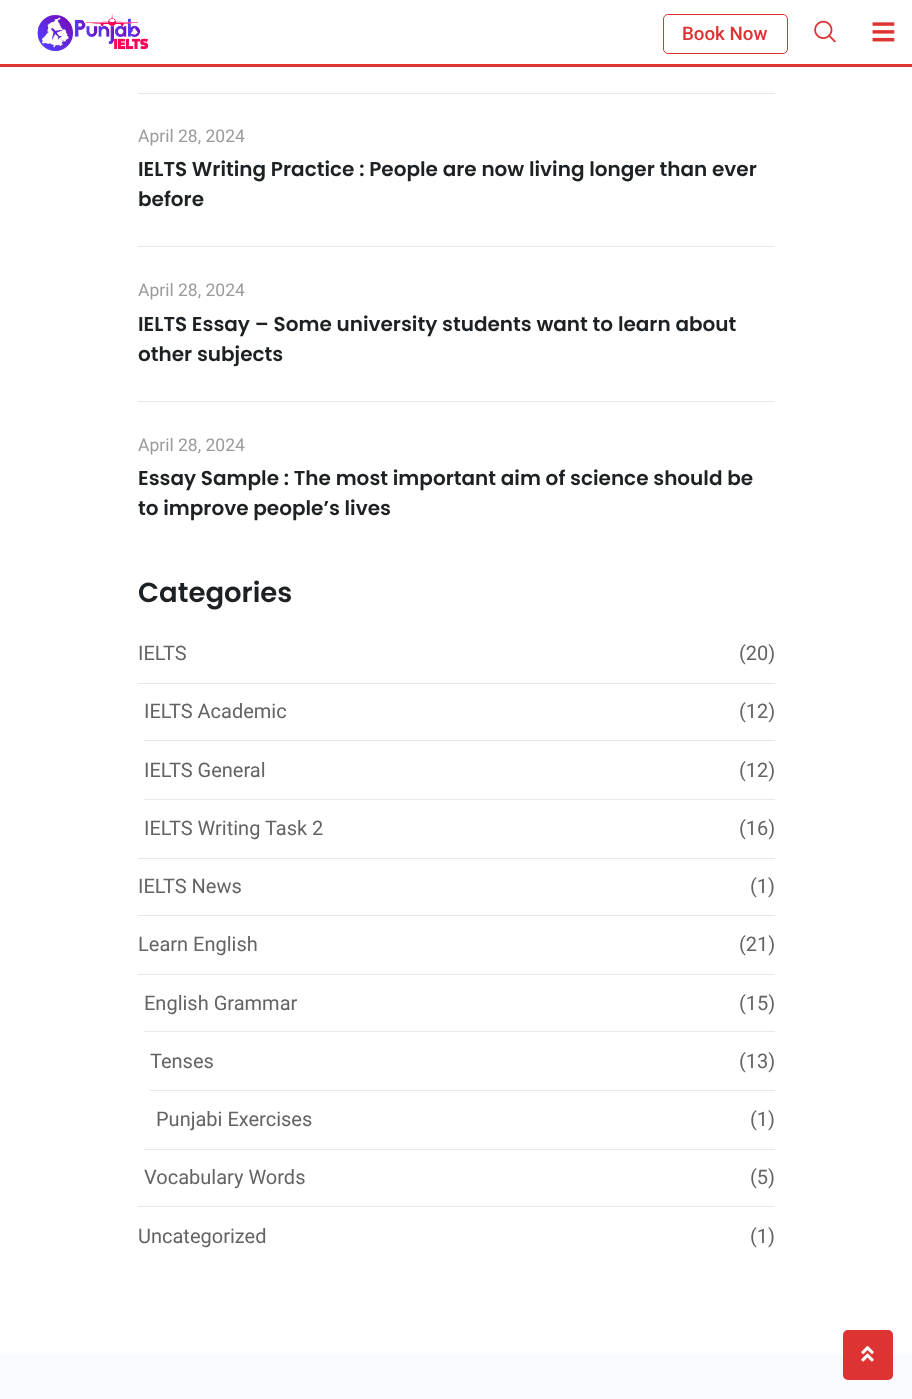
<svg xmlns="http://www.w3.org/2000/svg" width="912" height="1399" viewBox="0 0 912 1399">
  <style>
    .t1 { font: 500 18.75px Roboto; fill: #d33; }
    .t2 { font: 17.5px Roboto; fill: #9b9b9b; }
    .t3 { font: 600 20px Poppins; fill: #1d2124; }
    .t4 { font: 600 27.5px Poppins; fill: #1d2124; }
    .t5 { font: 20px Roboto; fill: #646464; }
  </style>
  <rect width="100%" height="100%" fill="#fff"/>
  <rect x="0" y="64" width="912" height="3" fill="#d33"/>
  <image x="37" y="13" width="112" height="38" href="images/1.png"/>
  <rect x="663.5" y="14.5" width="124" height="39" rx="4.5" fill="none" stroke="#d33"/>
  <text x="682" y="40" class="t1">Book Now</text>
  <image x="814" y="20" width="22" height="23" href="images/2.png"/>
  <image x="872" y="22" width="23" height="20" href="images/3.png"/>
  <rect x="138" y="93" width="637" height="1" fill="#e9e9e9"/>
  <rect x="138" y="246" width="637" height="1" fill="#e9e9e9"/>
  <text x="138" y="142" class="t2">April 28, 2024</text>
  <text x="138" y="176" class="t3">IELTS Writing Practice : People are now living longer than ever</text>
  <text x="138" y="206" class="t3">before</text>
  <rect x="138" y="401" width="637" height="1" fill="#e9e9e9"/>
  <text x="138" y="296" class="t2">April 28, 2024</text>
  <text x="138" y="331" class="t3">IELTS Essay – Some university students want to learn about</text>
  <text x="138" y="361" class="t3">other subjects</text>
  <text x="138" y="451" class="t2">April 28, 2024</text>
  <text x="138" y="485" class="t3">Essay Sample : The most important aim of science should be</text>
  <text x="138" y="515" class="t3">to improve people’s lives</text>
  <text x="138" y="602" class="t4">Categories</text>
  <rect x="138" y="858" width="637" height="1" fill="#e9e9e9"/>
  <text x="138" y="660" class="t5">IELTS</text>
  <text x="739" y="660" class="t5">(20)</text>
  <rect x="138" y="683" width="637" height="1" fill="#e9e9e9"/>
  <rect x="144" y="740" width="631" height="1" fill="#e9e9e9"/>
  <text x="144" y="718" class="t5">IELTS Academic</text>
  <text x="739" y="718" class="t5">(12)</text>
  <rect x="144" y="799" width="631" height="1" fill="#e9e9e9"/>
  <text x="144" y="777" class="t5">IELTS General</text>
  <text x="739" y="777" class="t5">(12)</text>
  <text x="144" y="835" class="t5">IELTS Writing Task 2</text>
  <text x="739" y="835" class="t5">(16)</text>
  <rect x="138" y="915" width="637" height="1" fill="#e9e9e9"/>
  <text x="138" y="893" class="t5">IELTS News</text>
  <text x="750" y="893" class="t5">(1)</text>
  <rect x="138" y="1206" width="637" height="1" fill="#e9e9e9"/>
  <text x="138" y="951" class="t5">Learn English</text>
  <text x="739" y="951" class="t5">(21)</text>
  <rect x="138" y="974" width="637" height="1" fill="#e9e9e9"/>
  <rect x="144" y="1149" width="631" height="1" fill="#e9e9e9"/>
  <text x="144" y="1010" class="t5">English Grammar</text>
  <text x="739" y="1010" class="t5">(15)</text>
  <rect x="144" y="1031" width="631" height="1" fill="#e9e9e9"/>
  <text x="150" y="1068" class="t5">Tenses</text>
  <text x="739" y="1068" class="t5">(13)</text>
  <rect x="150" y="1090" width="625" height="1" fill="#e9e9e9"/>
  <text x="156" y="1126" class="t5">Punjabi Exercises</text>
  <text x="750" y="1126" class="t5">(1)</text>
  <text x="144" y="1184" class="t5">Vocabulary Words</text>
  <text x="750" y="1184" class="t5">(5)</text>
  <text x="138" y="1243" class="t5">Uncategorized</text>
  <text x="750" y="1243" class="t5">(1)</text>
  <rect x="0" y="1354" width="912" height="45" fill="#f8fbff"/>
  <rect x="843" y="1330" width="50" height="50" rx="5" fill="#d33"/>
  <image x="861" y="1346" width="13" height="16" href="images/4.png"/>
</svg>
